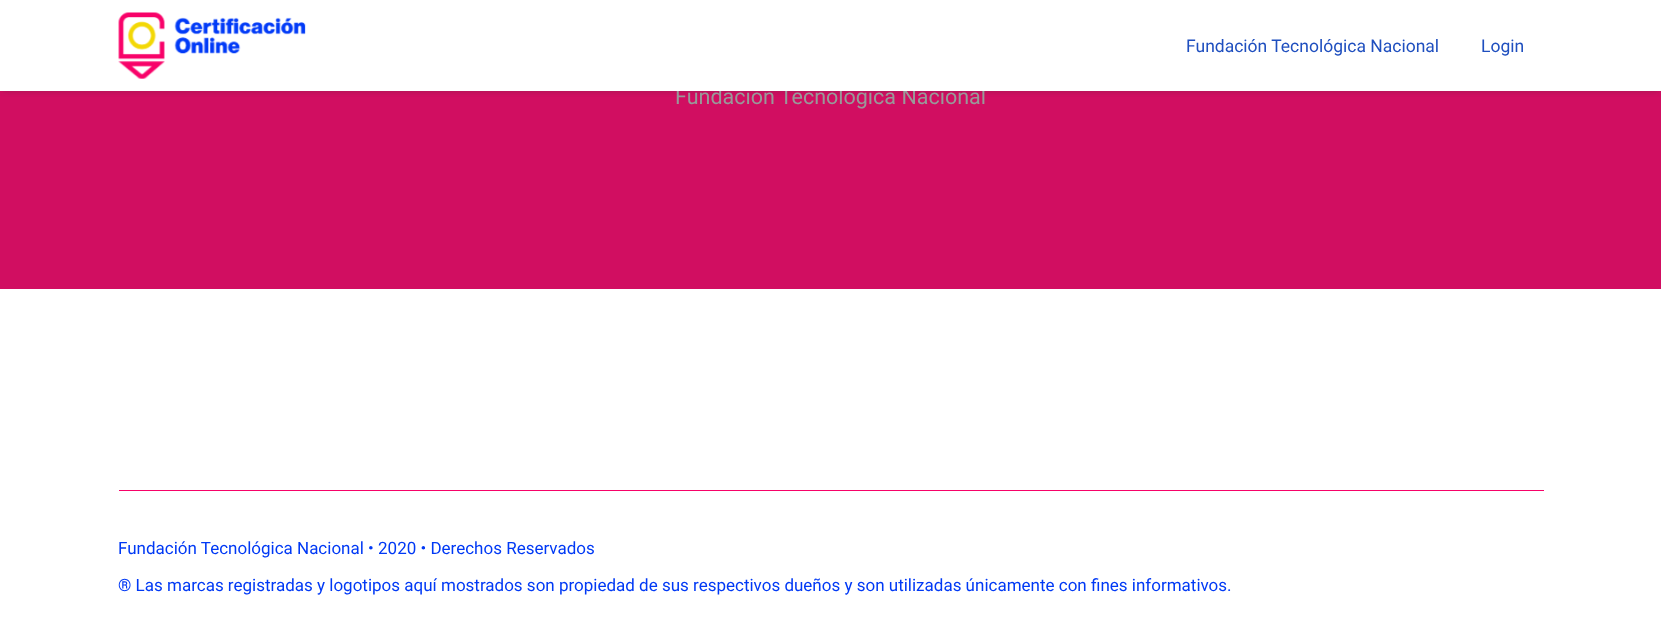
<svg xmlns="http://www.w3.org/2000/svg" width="1661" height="626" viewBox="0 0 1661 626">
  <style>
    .t1 { font: 21.5px Roboto; fill: #999; }
    .t2 { font: 17.5px Roboto; fill: #1f4fbf; }
    .t3 { font: 17px Roboto; fill: #0039f5; }
  </style>
  <rect width="100%" height="100%" fill="#fff"/>
  <rect x="0" y="91" width="1661" height="198" fill="#d10e61"/>
  <rect x="3" y="4" width="1656" height="86" fill="#2a2a2a66" filter="blur(3px)"/>
  <text x="675" y="104" class="t1">Fundación Tecnológica Nacional</text>
  <rect x="0" y="0" width="1661" height="91" fill="#fff"/>
  <image x="118" y="12" width="188" height="67" href="images/1.png"/>
  <text x="1186" y="52" class="t2">Fundación Tecnológica Nacional</text>
  <text x="1481" y="52" class="t2">Login</text>
  <rect x="119" y="490" width="1425" height="1" fill="#f70268"/>
  <text x="118" y="554" class="t3">Fundación Tecnológica Nacional • 2020 • Derechos Reservados</text>
  <text x="118" y="591" class="t3">® Las marcas registradas y logotipos aquí mostrados son propiedad de sus respectivos dueños y son utilizadas únicamente con fines informativos.</text>
</svg>
